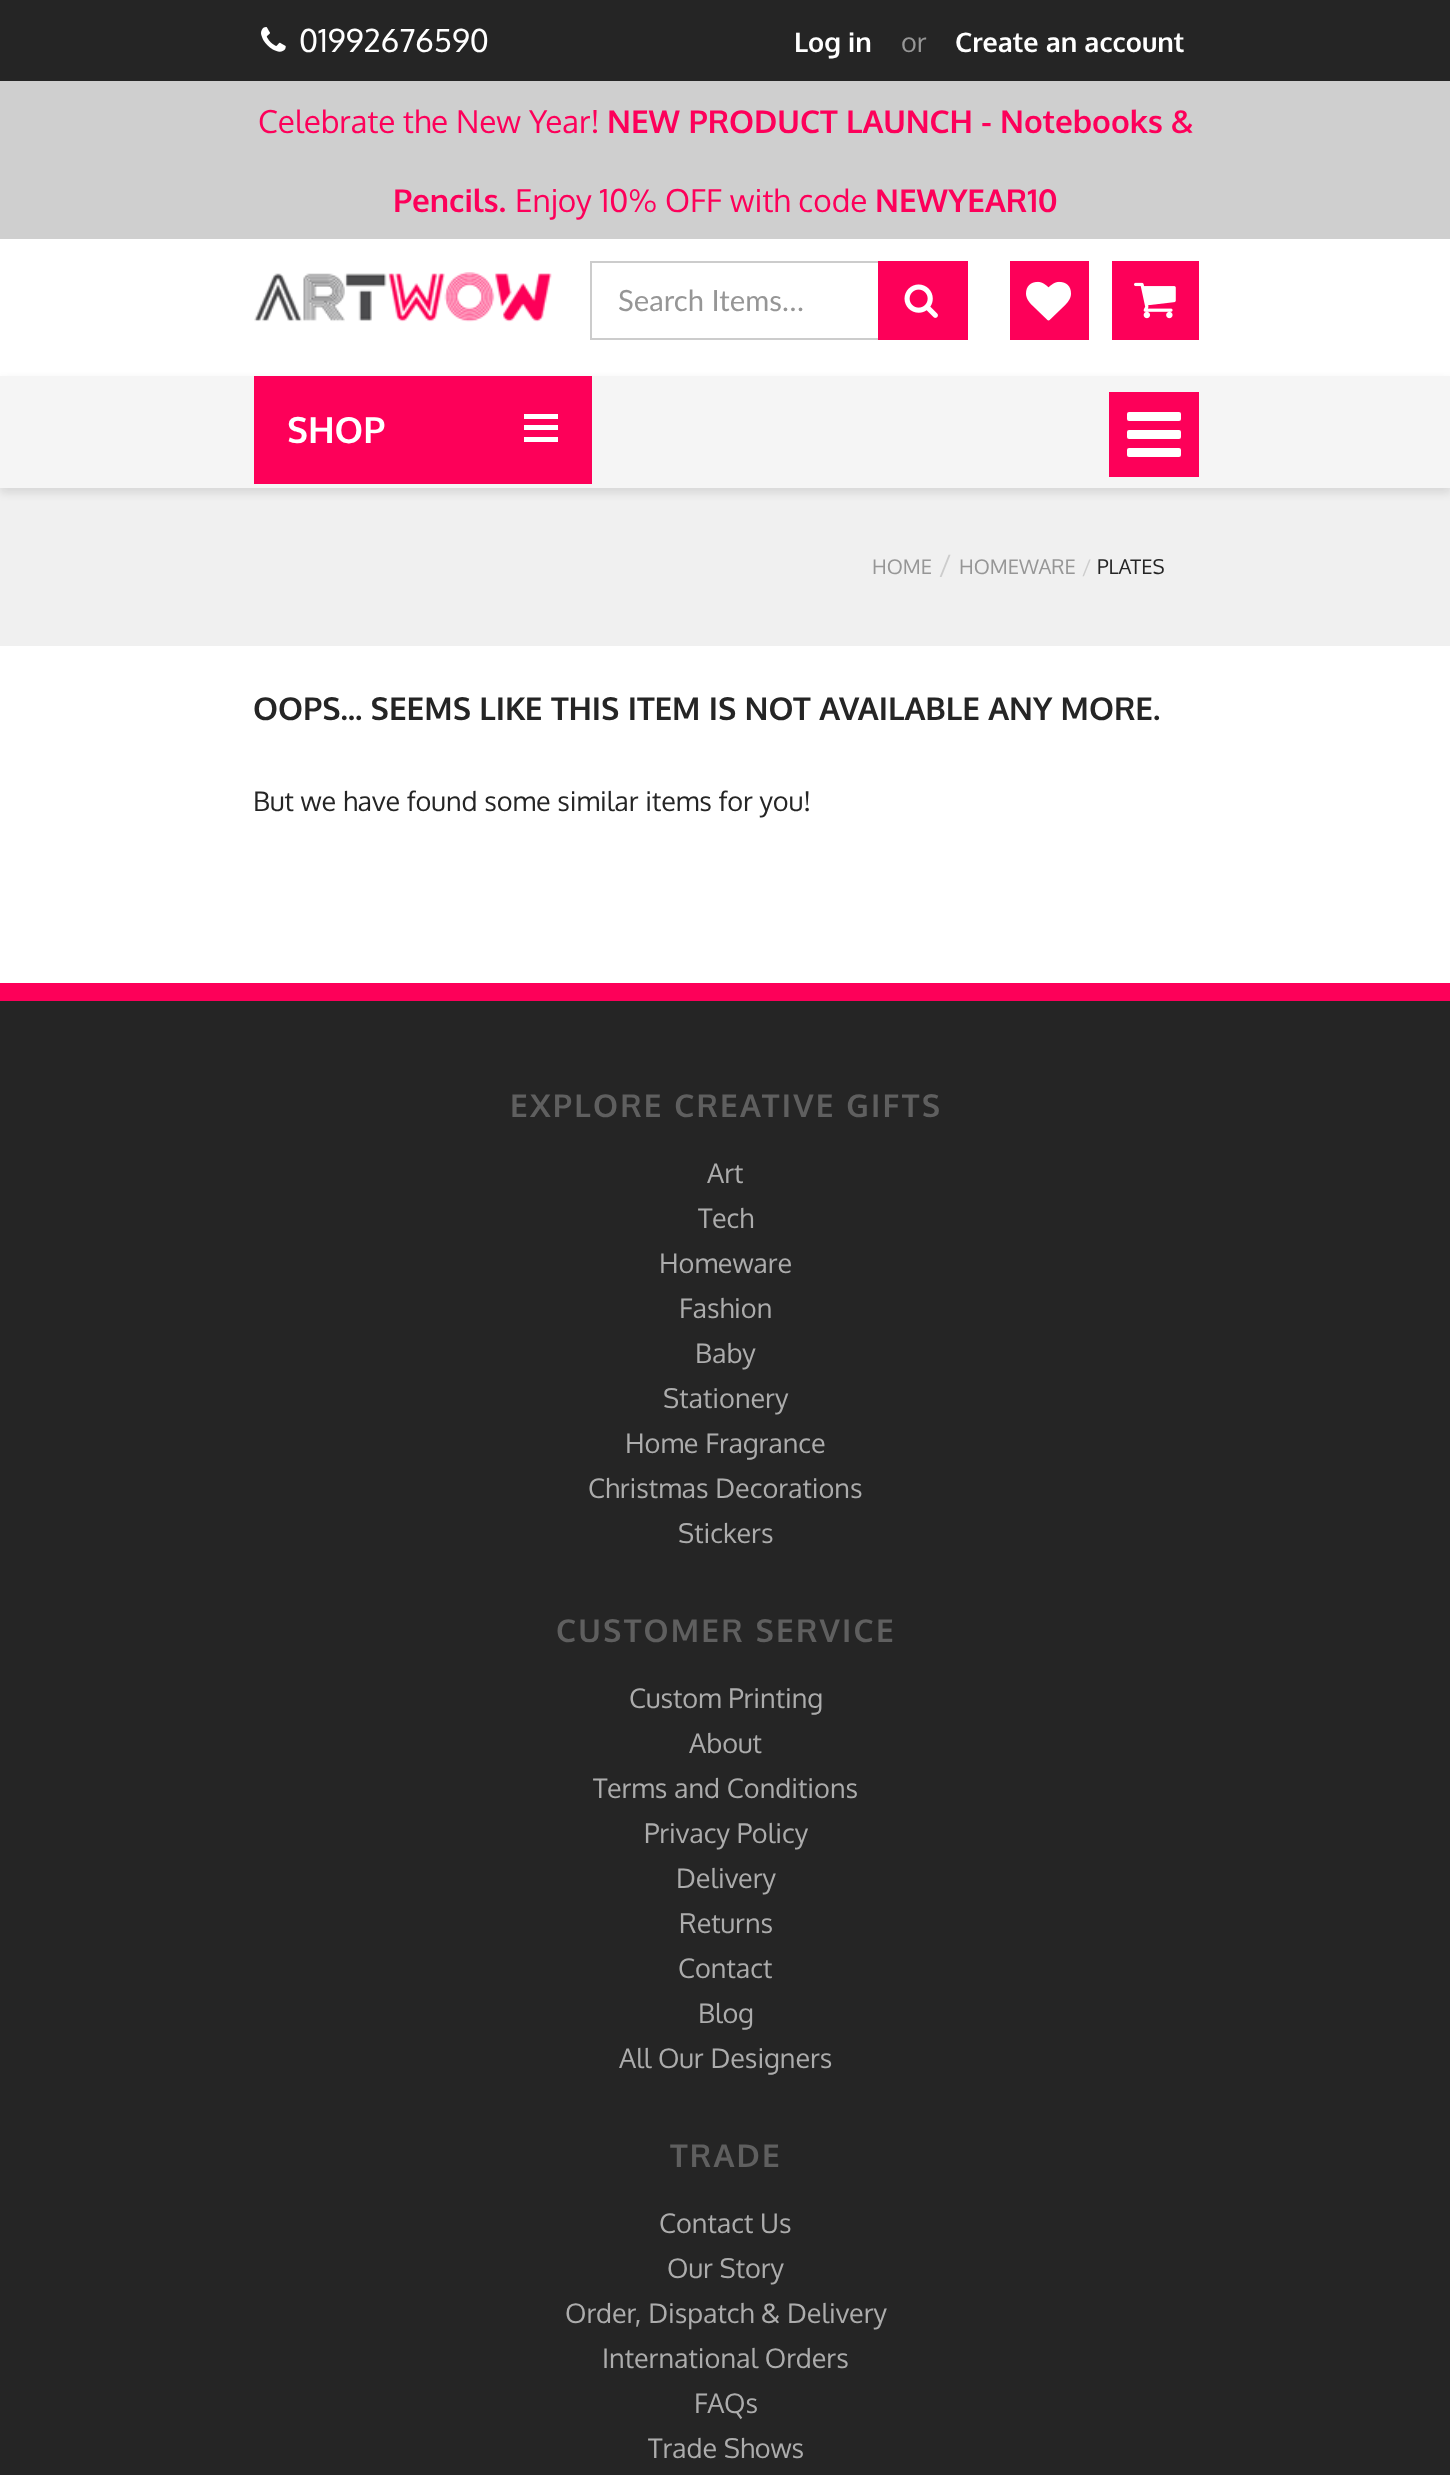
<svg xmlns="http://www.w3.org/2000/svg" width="1450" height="2475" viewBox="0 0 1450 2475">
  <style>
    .t1 { font: 31.5px Oxygen; fill: #fff; }
    .t2 { font: bold 27px Oxygen; fill: #fff; }
    .t3 { font: 27px Oxygen; fill: #969696; }
    .t4 { font: 31.5px Oxygen; fill: #fd005a; }
    .t5 { font: bold 31.5px Oxygen; fill: #fd005a; }
    .t6 { font: 29.25px Lato; fill: #969696; }
    .t7 { font: bold 36px Oxygen; fill: #fff; }
    .t8 { font: 20.25px Oxygen; fill: #969696; }
    .t9 { font: 27px Oxygen; fill: #ccc; }
    .t10 { font: 20.25px Oxygen; fill: #ccc; }
    .t11 { font: 20.25px Oxygen; fill: #252525; }
    .t12 { font: bold 31.5px Oxygen; fill: #252525; }
    .t13 { font: 27px Oxygen; fill: #252525; }
    .t14 { font: bold 31.5px Oxygen; letter-spacing: 2.25px; fill: #5f5f5f; }
    .t15 { font: 27px Oxygen; fill: #acacac; }
  </style>
  <rect width="100%" height="100%" fill="#fff"/>
  <rect x="0" y="0" width="1450" height="81" fill="#252525"/>
  <image x="261" y="27" width="25" height="25" href="images/1.png"/>
  <text x="299" y="52" class="t1">01992676590</text>
  <text x="794" y="52" class="t2">Log in</text>
  <text x="901" y="52" class="t3">or</text>
  <text x="955" y="52" class="t2">Create an account</text>
  <rect x="0" y="81" width="1450" height="158" fill="#cfcfcf"/>
  <text x="258" y="133" class="t4">Celebrate the New Year!</text>
  <text x="607" y="133" class="t5">NEW PRODUCT LAUNCH - Notebooks &amp;</text>
  <text x="393" y="212" class="t5">Pencils.</text>
  <text x="515" y="212" class="t4">Enjoy 10% OFF with code</text>
  <text x="875" y="212" class="t5">NEWYEAR10</text>
  <image x="254" y="272" width="298" height="50" href="images/2.png"/>
  <rect x="591" y="262" width="376" height="77" fill="none" stroke="#ccc" stroke-width="2"/>
  <text x="618" y="311" class="t6">Search Items…</text>
  <rect x="878" y="261" width="90" height="79" fill="#fd0059"/>
  <image x="904" y="284" width="34" height="34" href="images/3.png"/>
  <rect x="1010" y="261" width="79" height="79" fill="#fd0059"/>
  <image x="1026" y="281" width="45" height="40" href="images/4.png"/>
  <rect x="1112" y="261" width="87" height="79" fill="#fd0059"/>
  <image x="1134" y="282" width="42" height="37" href="images/5.png"/>
  <rect x="0" y="488" width="1450" height="158" fill="#f0f0f0"/>
  <rect x="0" y="380" width="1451" height="113" fill="#0000001a" filter="blur(4.5px)"/>
  <rect x="0" y="376" width="1450" height="112" fill="#f5f5f5"/>
  <rect x="254" y="376" width="338" height="108" fill="#fd0059"/>
  <text x="287" y="443" class="t7">SHOP</text>
  <rect x="524" y="414" width="34" height="5" fill="#fff"/>
  <rect x="524" y="425" width="34" height="5" fill="#fff"/>
  <rect x="524" y="437" width="34" height="5" fill="#fff"/>
  <rect x="1109" y="392" width="90" height="85" fill="#fd0059"/>
  <rect x="1127" y="412" width="54" height="9" rx="2" fill="#fff"/>
  <rect x="1127" y="430" width="54" height="9" rx="2" fill="#fff"/>
  <rect x="1127" y="448" width="54" height="9" rx="2" fill="#fff"/>
  <text x="872" y="574" class="t8">HOME</text>
  <text x="939" y="574" class="t9">/</text>
  <text x="959" y="574" class="t8">HOMEWARE</text>
  <text x="1082" y="574" class="t10">/</text>
  <text x="1097" y="574" class="t11">PLATES</text>
  <text x="253" y="720" class="t12">OOPS... SEEMS LIKE THIS ITEM IS NOT AVAILABLE ANY MORE.</text>
  <text x="253" y="811" class="t13">But we have found some similar items for you!</text>
  <rect x="0" y="1001" width="1450" height="1474" fill="#252525"/>
  <rect x="0" y="983" width="1450" height="18" fill="#fd0059"/>
  <text x="510" y="1117" class="t14">EXPLORE CREATIVE GIFTS</text>
  <text x="707" y="1183" class="t15">Art</text>
  <text x="698" y="1228" class="t15">Tech</text>
  <text x="659" y="1273" class="t15">Homeware</text>
  <text x="679" y="1318" class="t15">Fashion</text>
  <text x="695" y="1363" class="t15">Baby</text>
  <text x="663" y="1408" class="t15">Stationery</text>
  <text x="625" y="1453" class="t15">Home Fragrance</text>
  <text x="588" y="1498" class="t15">Christmas Decorations</text>
  <text x="678" y="1543" class="t15">Stickers</text>
  <text x="556" y="1642" class="t14">CUSTOMER SERVICE</text>
  <text x="629" y="1708" class="t15">Custom Printing</text>
  <text x="689" y="1753" class="t15">About</text>
  <text x="593" y="1798" class="t15">Terms and Conditions</text>
  <text x="644" y="1843" class="t15">Privacy Policy</text>
  <text x="676" y="1888" class="t15">Delivery</text>
  <text x="679" y="1933" class="t15">Returns</text>
  <text x="678" y="1978" class="t15">Contact</text>
  <text x="698" y="2023" class="t15">Blog</text>
  <text x="619" y="2068" class="t15">All Our Designers</text>
  <text x="670" y="2167" class="t14">TRADE</text>
  <text x="659" y="2233" class="t15">Contact Us</text>
  <text x="667" y="2278" class="t15">Our Story</text>
  <text x="565" y="2323" class="t15">Order, Dispatch &amp; Delivery</text>
  <text x="602" y="2368" class="t15">International Orders</text>
  <text x="694" y="2413" class="t15">FAQs</text>
  <text x="648" y="2458" class="t15">Trade Shows</text>
</svg>
